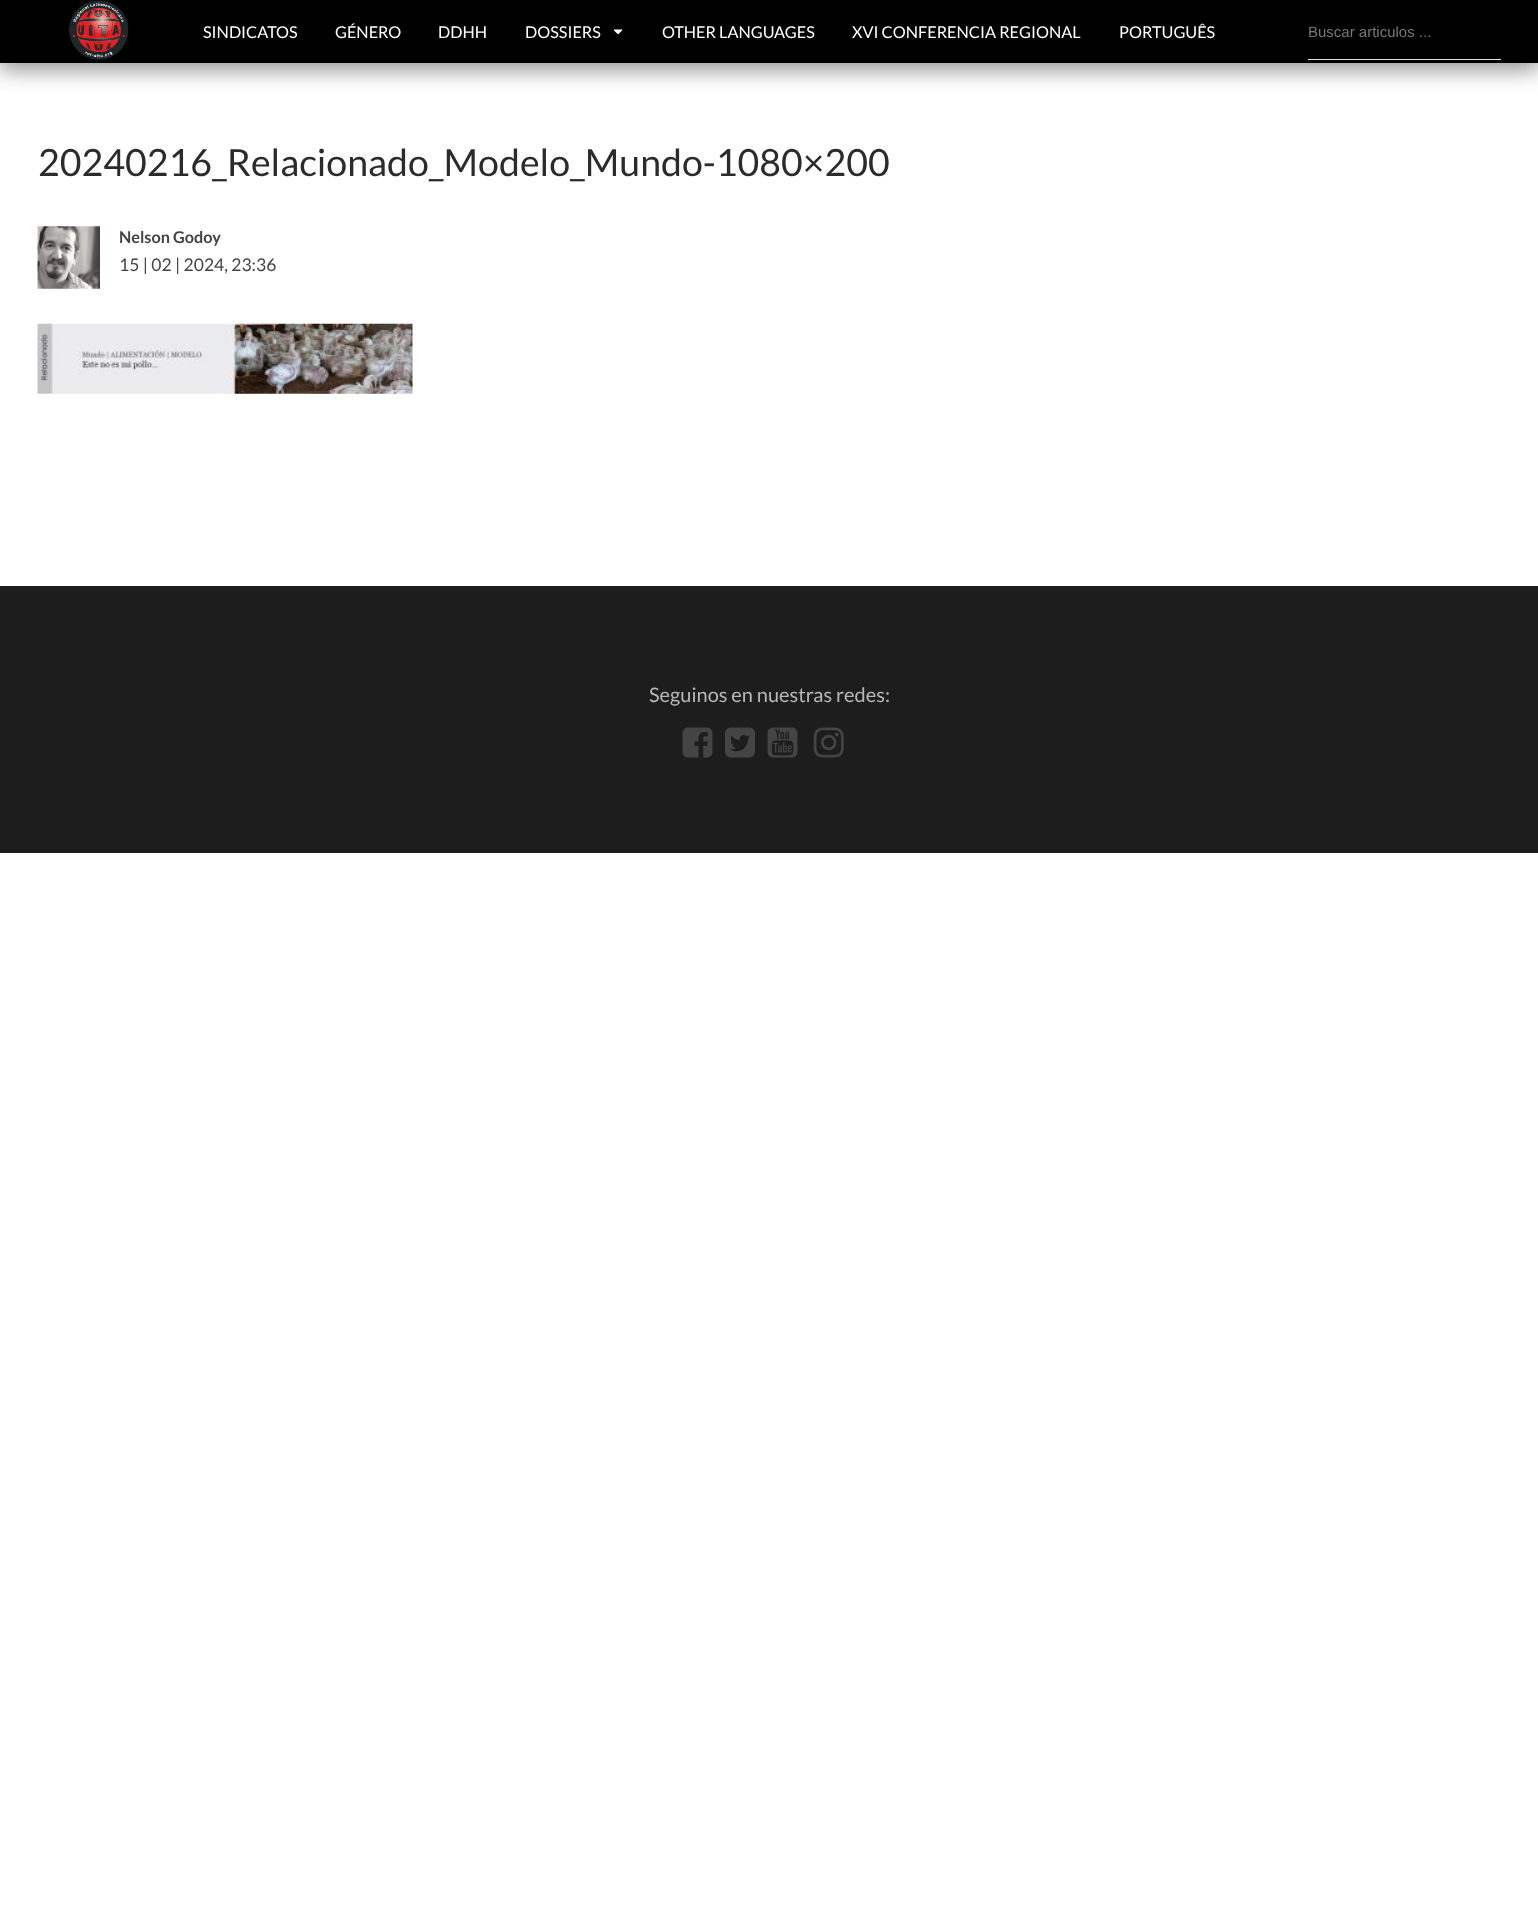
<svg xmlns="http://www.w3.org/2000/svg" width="1538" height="1916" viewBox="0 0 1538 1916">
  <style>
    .t1 { font: 16.25px Lato; fill: #fff; }
    .t2 { font: 15px Liberation Sans; fill: #777; }
    .t3 { font: 37.5px Lato; fill: #2b2b2b; }
    .t4 { font: bold 16.25px Lato; fill: #444; }
    .t5 { font: 17.5px Lato; fill: #444; }
    .t6 { font: 20px Lato; fill: #b7b7b7; }
  </style>
  <rect width="100%" height="100%" fill="#fff"/>
  <rect x="0" y="6" width="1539" height="63" fill="#00000029" filter="blur(10.5px)"/>
  <rect x="0" y="6" width="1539" height="63" fill="#00000029" filter="blur(10.5px)"/>
  <rect x="0" y="6" width="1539" height="63" fill="#00000029" filter="blur(10.5px)"/>
  <rect x="0" y="0" width="1538" height="63" fill="#000"/>
  <image x="69" y="0" width="60" height="60" href="images/1.png"/>
  <text x="203" y="38" class="t1">SINDICATOS</text>
  <text x="335" y="38" class="t1">GÉNERO</text>
  <text x="438" y="38" class="t1">DDHH</text>
  <text x="525" y="38" class="t1">DOSSIERS</text>
  <image x="613" y="29" width="10" height="6" href="images/2.png"/>
  <text x="662" y="38" class="t1">OTHER LANGUAGES</text>
  <text x="852" y="38" class="t1">XVI CONFERENCIA REGIONAL</text>
  <text x="1119" y="38" class="t1">PORTUGUÊS</text>
  <rect x="1308" y="59" width="193" height="1" fill="#e2e2e2"/>
  <text x="1308" y="37" class="t2">Buscar articulos ...</text>
  <text x="38" y="176" class="t3">20240216_Relacionado_Modelo_Mundo-1080×200</text>
  <image x="37" y="226" width="63" height="63" href="images/3.png"/>
  <text x="119" y="243" class="t4">Nelson Godoy</text>
  <text x="119" y="271" class="t5">15 | 02 | 2024, 23:36</text>
  <image x="37" y="323" width="376" height="71" href="images/4.png"/>
  <rect x="0" y="586" width="1538" height="267" fill="#1d1d1d"/>
  <text x="649" y="702" class="t6">Seguinos en nuestras redes:</text>
  <image x="682" y="727" width="31" height="31" href="images/5.png"/>
  <image x="725" y="727" width="30" height="31" href="images/6.png"/>
  <image x="767" y="727" width="31" height="31" href="images/7.png"/>
  <image x="813" y="727" width="31" height="31" href="images/8.png"/>
</svg>
